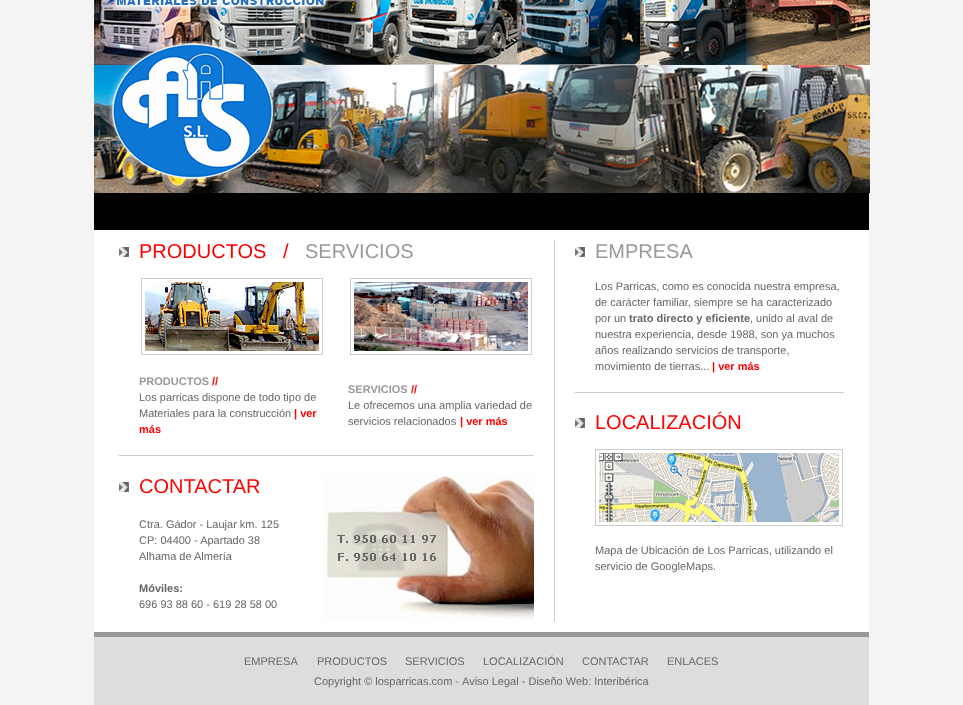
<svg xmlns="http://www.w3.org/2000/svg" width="963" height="705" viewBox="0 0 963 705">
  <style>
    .t1 { font: 20px Liberation Sans; fill: #f00; }
    .t2 { font: 20px Liberation Sans; fill: #999; }
    .t3 { font: bold 11px Liberation Sans; fill: #999; }
    .t4 { font: bold 11px Liberation Sans; fill: #f00; }
    .t5 { font: 11px Liberation Sans; fill: #666; }
    .t6 { font: bold 11px Liberation Sans; fill: #666; }
  </style>
  <rect width="100%" height="100%" fill="#f4f4f4"/>
  <rect x="94" y="230" width="775" height="402" fill="#fff"/>
  <rect x="94" y="193" width="775" height="37" fill="#000"/>
  <image x="94" y="0" width="776" height="193" href="images/1.png"/>
  <image x="112" y="0" width="217" height="10" href="images/2.png"/>
  <image x="109" y="41" width="167" height="140" href="images/3.png"/>
  <image x="119" y="247" width="10" height="10" href="images/4.png"/>
  <text x="139" y="258" class="t1" xml:space="preserve">PRODUCTOS   /</text>
  <text x="305" y="258" class="t2">SERVICIOS</text>
  <rect x="141.5" y="278.5" width="181" height="76" fill="none" stroke="#ccc"/>
  <image x="145" y="282" width="174" height="69" href="images/5.png"/>
  <rect x="350.5" y="278.5" width="181" height="76" fill="none" stroke="#ccc"/>
  <image x="354" y="282" width="174" height="69" href="images/6.png"/>
  <text x="139" y="385" class="t3">PRODUCTOS</text>
  <text x="212" y="385" class="t4">//</text>
  <text x="139" y="401" class="t5">Los parricas dispone de todo tipo de</text>
  <text x="139" y="417" class="t5">Materiales para la construcción</text>
  <text x="294" y="417" class="t4">| ver</text>
  <text x="139" y="433" class="t4">más</text>
  <text x="348" y="393" class="t3">SERVICIOS</text>
  <text x="411" y="393" class="t4">//</text>
  <text x="348" y="409" class="t5">Le ofrecemos una amplia variedad de</text>
  <text x="348" y="425" class="t5">servicios relacionados</text>
  <text x="460" y="425" class="t4">| ver más</text>
  <rect x="119" y="455" width="415" height="1" fill="#ccc"/>
  <image x="119" y="482" width="10" height="10" href="images/4.png"/>
  <text x="139" y="493" class="t1">CONTACTAR</text>
  <image x="323" y="474" width="211" height="147" href="images/7.png"/>
  <text x="139" y="528" class="t5">Ctra. Gádor - Laujar km. 125</text>
  <text x="139" y="544" class="t5">CP: 04400 - Apartado 38</text>
  <text x="139" y="560" class="t5">Alhama de Almería</text>
  <text x="139" y="592" class="t6">Móviles:</text>
  <text x="139" y="608" class="t5">696 93 88 60 - 619 28 58 00</text>
  <rect x="554" y="240" width="1" height="382" fill="#ccc"/>
  <image x="575" y="247" width="10" height="10" href="images/4.png"/>
  <text x="595" y="258" class="t2">EMPRESA</text>
  <text x="595" y="290" class="t5">Los Parricas, como es conocida nuestra empresa,</text>
  <text x="595" y="306" class="t5">de carácter familiar, siempre se ha caracterizado</text>
  <text x="595" y="322" class="t5">por un</text>
  <text x="629" y="322" class="t6">trato directo y eficiente</text>
  <text x="750" y="322" class="t5">, unido al aval de</text>
  <text x="595" y="338" class="t5">nuestra experiencia, desde 1988, son ya muchos</text>
  <text x="595" y="354" class="t5">años realizando servicios de transporte,</text>
  <text x="595" y="370" class="t5">movimiento de tierras...</text>
  <text x="712" y="370" class="t4">| ver más</text>
  <rect x="575" y="392" width="269" height="1" fill="#ccc"/>
  <image x="575" y="418" width="10" height="10" href="images/4.png"/>
  <text x="595" y="429" class="t1">LOCALIZACIÓN</text>
  <rect x="595.5" y="449.5" width="247" height="76" fill="none" stroke="#ccc"/>
  <image x="599" y="453" width="240" height="69" href="images/8.png"/>
  <text x="595" y="554" class="t5">Mapa de Ubicación de Los Parricas, utilizando el</text>
  <text x="595" y="570" class="t5">servicio de GoogleMaps.</text>
  <rect x="94" y="632" width="775" height="5" fill="#999"/>
  <rect x="94" y="637" width="775" height="68" fill="#ddd"/>
  <text x="244" y="665" class="t5">EMPRESA</text>
  <text x="317" y="665" class="t5">PRODUCTOS</text>
  <text x="405" y="665" class="t5">SERVICIOS</text>
  <text x="483" y="665" class="t5">LOCALIZACIÓN</text>
  <text x="582" y="665" class="t5">CONTACTAR</text>
  <text x="667" y="665" class="t5">ENLACES</text>
  <text x="314" y="685" class="t5">Copyright © losparricas.com -</text>
  <text x="462" y="685" class="t5">Aviso Legal - Diseño Web: Interibérica</text>
</svg>
